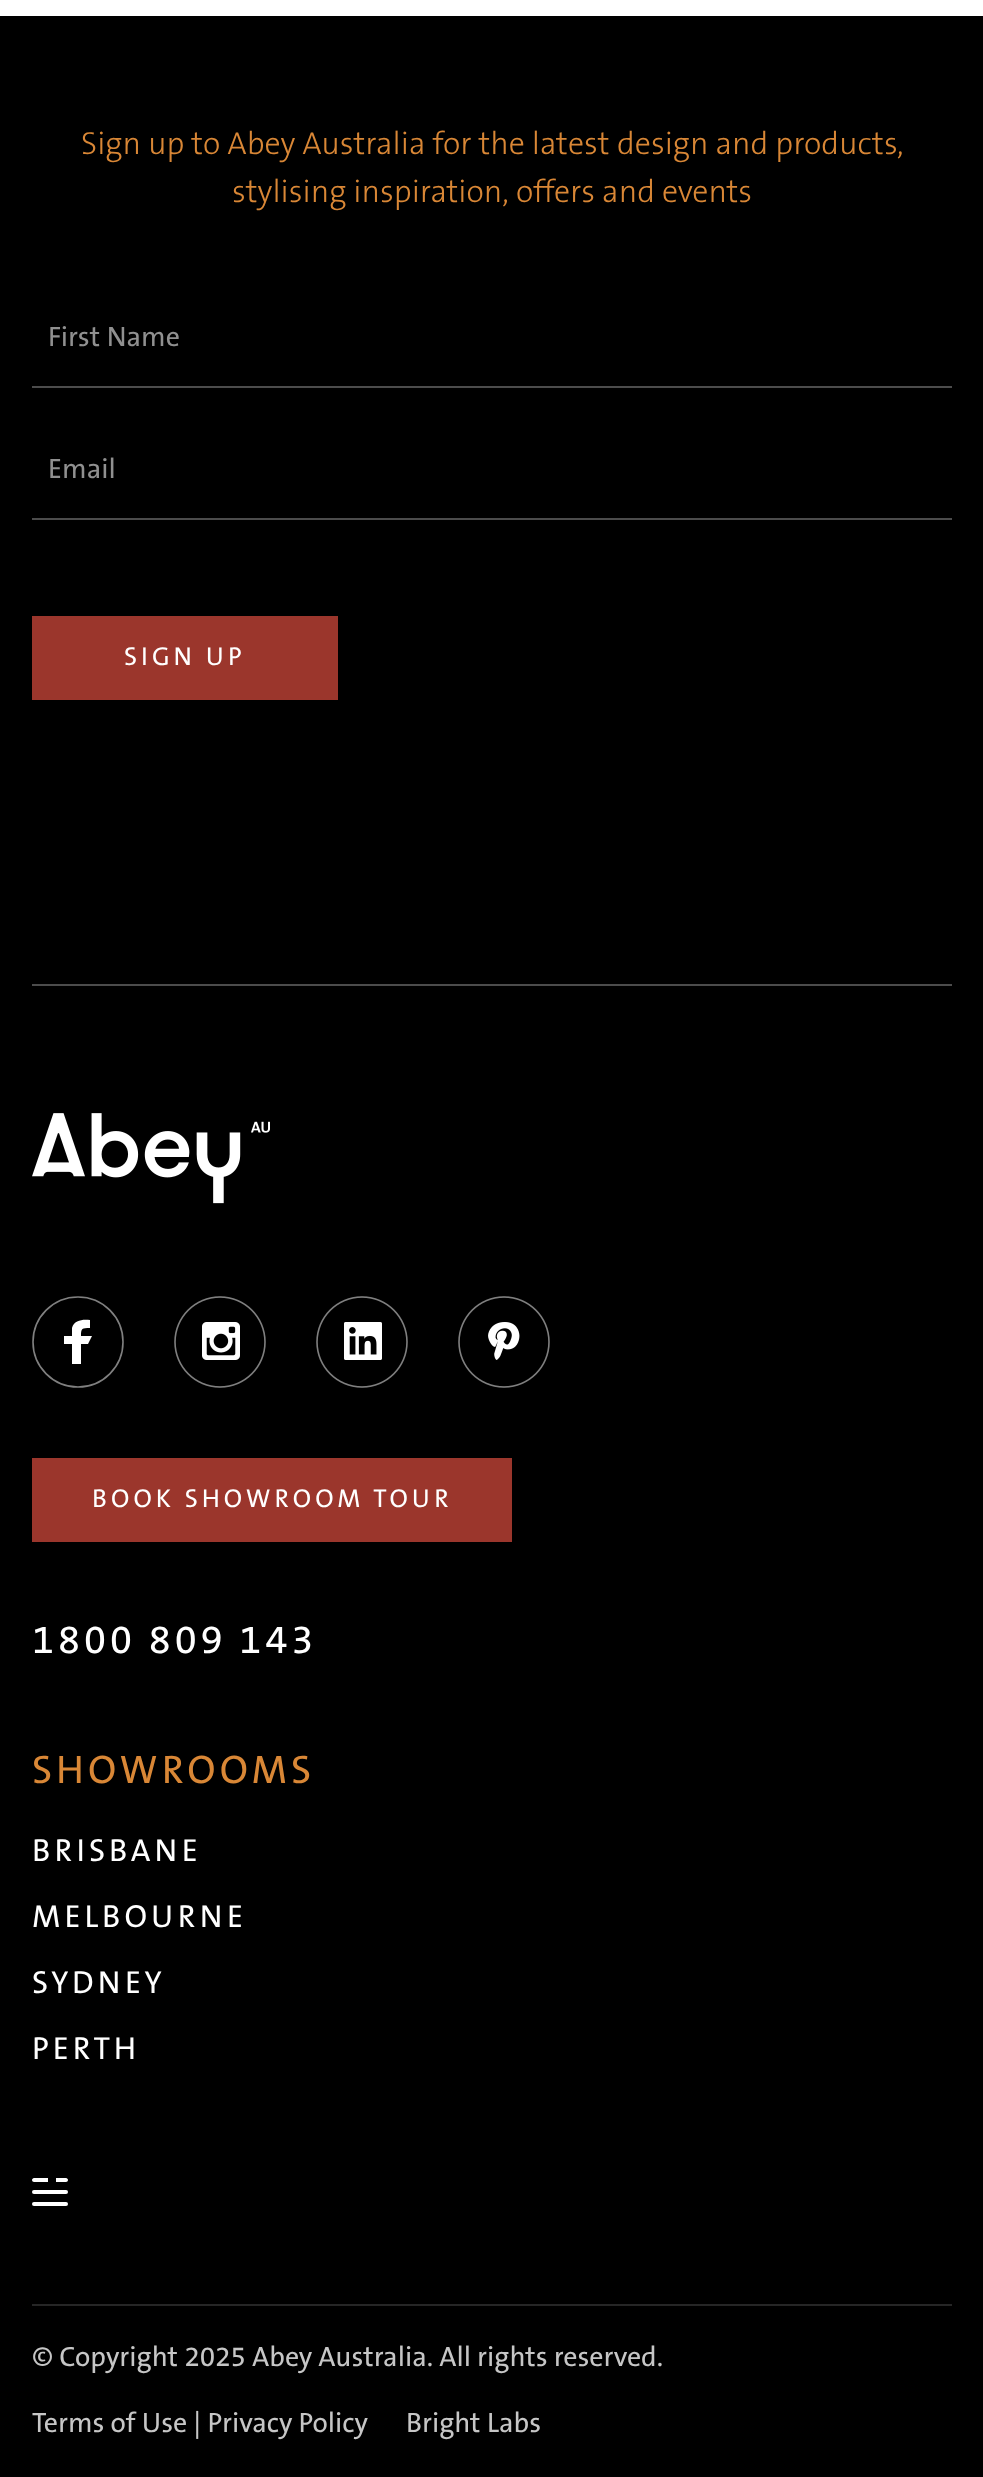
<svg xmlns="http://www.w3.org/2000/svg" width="983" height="2477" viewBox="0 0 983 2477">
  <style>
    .t1 { font: 300 32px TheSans; fill: #d98736; }
    .t2 { font: 28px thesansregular; fill: #909090; }
    .t3 { font: 26px thesansregular; letter-spacing: 4px; fill: #fff; }
    .t4 { font: 40px thesansregular; letter-spacing: 4px; fill: #fff; }
    .t5 { font: 40px thesansregular; letter-spacing: 4px; fill: #d98736; }
    .t6 { font: 32px thesansregular; letter-spacing: 4px; fill: #fff; }
    .t7 { font: 28px thesansregular; fill: #c6c6c6; }
  </style>
  <rect width="100%" height="100%" fill="#000"/>
  <rect x="0" y="0" width="983" height="16" fill="#fff"/>
  <rect x="32" y="984" width="920" height="2" fill="#4c4c4c"/>
  <text x="81" y="154" class="t1">Sign up to Abey Australia for the latest design and products,</text>
  <text x="232" y="202" class="t1">stylising inspiration, offers and events</text>
  <rect x="32" y="386" width="920" height="2" fill="#4c4c4c"/>
  <text x="48" y="346" class="t2">First Name</text>
  <rect x="32" y="518" width="920" height="2" fill="#4c4c4c"/>
  <text x="48" y="478" class="t2">Email</text>
  <rect x="32" y="616" width="306" height="84" fill="#9b362c"/>
  <text x="124" y="665" class="t3">SIGN UP</text>
  <image x="32" y="1113" width="238" height="91" href="images/1.png"/>
  <circle cx="78" cy="1342" r="45" fill="none" stroke="#808080" stroke-width="1.6"/>
  <path d="M72 1364V1344H64V1336H72V1328C74 1320 83 1319 90 1320V1328C82 1328 81 1328 81 1336H92L88 1344H81V1364Z" fill="#fff"/>
  <image x="174" y="1296" width="92" height="92" href="images/2.png"/>
  <image x="316" y="1296" width="92" height="92" href="images/3.png"/>
  <image x="458" y="1296" width="92" height="92" href="images/4.png"/>
  <rect x="32" y="1458" width="480" height="84" fill="#9b362c"/>
  <text x="92" y="1507" class="t3">BOOK SHOWROOM TOUR</text>
  <text x="32" y="1653" class="t4">1800 809 143</text>
  <text x="32" y="1783" class="t5">SHOWROOMS</text>
  <text x="32" y="1861" class="t6">BRISBANE</text>
  <text x="32" y="1927" class="t6">MELBOURNE</text>
  <text x="32" y="1993" class="t6">SYDNEY</text>
  <text x="32" y="2059" class="t6">PERTH</text>
  <rect x="32" y="2190" width="36" height="4" rx="2" fill="#fff"/>
  <path d="M34 2178H48V2182H34C33 2182 32 2181 32 2180C32 2179 33 2178 34 2178Z" fill="#fff"/>
  <path d="M56 2178H66C67 2178 68 2179 68 2180C68 2181 67 2182 66 2182H56Z" fill="#fff"/>
  <rect x="32" y="2202" width="36" height="4" rx="2" fill="#fff"/>
  <rect x="32" y="2304" width="920" height="2" fill="#262626"/>
  <text x="32" y="2366" class="t7">© Copyright 2025 Abey Australia. All rights reserved.</text>
  <text x="32" y="2432" class="t7">Terms of Use | Privacy Policy</text>
  <text x="406" y="2432" class="t7">Bright Labs</text>
</svg>
